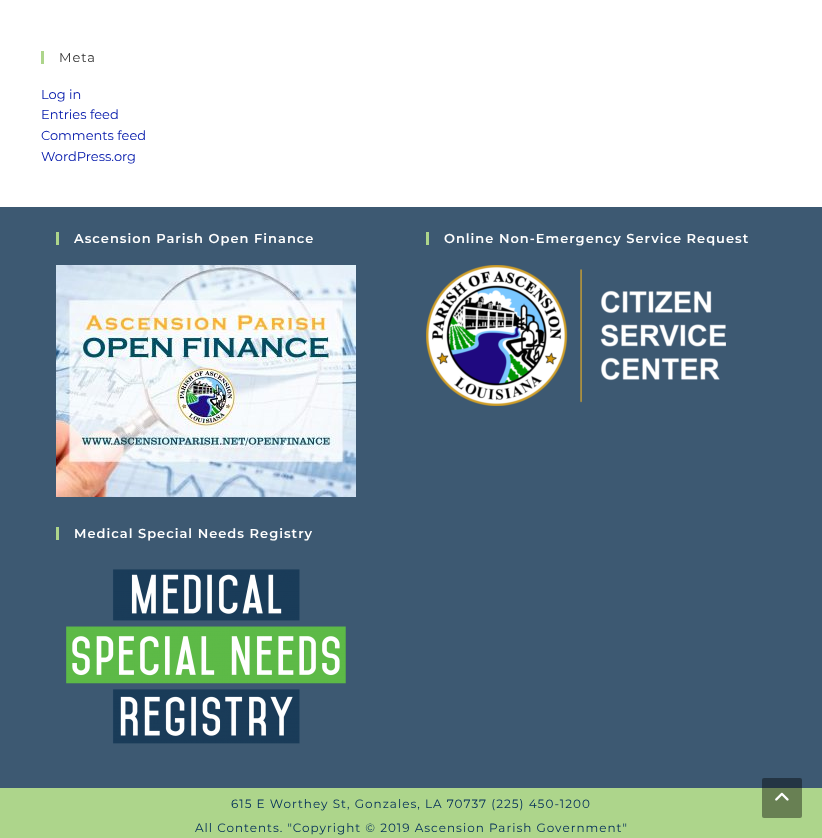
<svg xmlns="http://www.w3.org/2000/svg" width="822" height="838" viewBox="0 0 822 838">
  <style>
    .t1 { font: 13px Montserrat; letter-spacing: 1px; fill: #333; }
    .t2 { font: 13px Montserrat; fill: #0016aa; }
    .t3 { font: 600 13px Montserrat; letter-spacing: 1px; fill: #fff; }
    .t4 { font: 12px Montserrat; letter-spacing: 1px; fill: #002c59; }
  </style>
  <rect width="100%" height="100%" fill="#fff"/>
  <rect x="41" y="51" width="3" height="13" fill="#add58b"/>
  <text x="59" y="62" class="t1">Meta</text>
  <text x="41" y="99" class="t2">Log in</text>
  <text x="41" y="119" class="t2">Entries feed</text>
  <text x="41" y="140" class="t2">Comments feed</text>
  <text x="41" y="161" class="t2">WordPress.org</text>
  <rect x="0" y="207" width="822" height="581" fill="#3d5972"/>
  <rect x="56" y="232" width="3" height="13" fill="#add58b"/>
  <text x="74" y="243" class="t3">Ascension Parish Open Finance</text>
  <image x="56" y="265" width="300" height="232" href="images/1.png"/>
  <rect x="426" y="232" width="3" height="13" fill="#add58b"/>
  <text x="444" y="243" class="t3">Online Non-Emergency Service Request</text>
  <image x="426" y="265" width="300" height="141" href="images/2.png"/>
  <rect x="56" y="527" width="3" height="13" fill="#add58b"/>
  <text x="74" y="538" class="t3">Medical Special Needs Registry</text>
  <image x="66" y="569" width="280" height="175" href="images/3.png"/>
  <rect x="0" y="788" width="822" height="50" fill="#add58b"/>
  <text x="231" y="808" class="t4">615 E Worthey St, Gonzales, LA 70737 (225) 450-1200</text>
  <text x="195" y="832" class="t4">All Contents. "Copyright © 2019 Ascension Parish Government"</text>
  <rect x="762" y="778" width="40" height="40" rx="2" fill="#00000066"/>
  <image x="775" y="792" width="14" height="9" href="images/4.png"/>
</svg>
